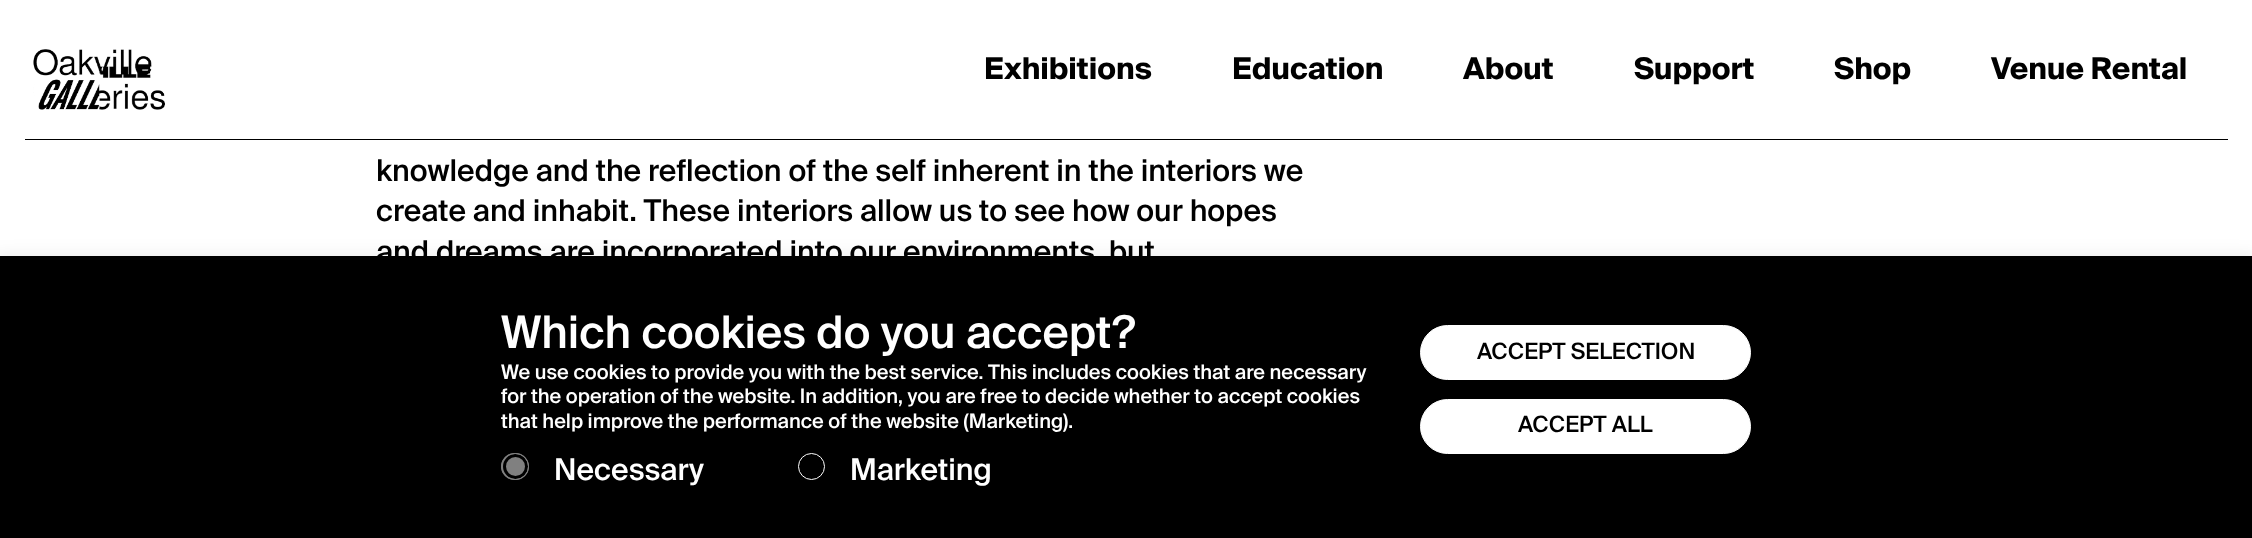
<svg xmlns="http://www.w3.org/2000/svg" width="2252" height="538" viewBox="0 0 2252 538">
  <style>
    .t1 { font: bold 30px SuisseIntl; fill: #000; }
    .t2 { font: 500 30px SuisseIntl; fill: #000; }
    .t3 { font: 500 45px SuisseIntl; fill: #fff; }
    .t4 { font: 500 20px SuisseIntl; fill: #fff; }
    .t5 { font: 500 30px SuisseIntl; fill: #fff; }
    .t6 { font: 500 22.5px SuisseIntl; fill: #000; }
  </style>
  <rect width="100%" height="100%" fill="#fff"/>
  <rect x="25" y="139" width="2203" height="1" fill="#000"/>
  <image x="33" y="49" width="132" height="61" href="images/1.png"/>
  <text x="984" y="79" class="t1">Exhibitions</text>
  <text x="1232" y="79" class="t1">Education</text>
  <text x="1463" y="79" class="t1">About</text>
  <text x="1634" y="79" class="t1">Support</text>
  <text x="1834" y="79" class="t1">Shop</text>
  <text x="1991" y="79" class="t1">Venue Rental</text>
  <text x="376" y="181" class="t2">knowledge and the reflection of the self inherent in the interiors we</text>
  <text x="376" y="221" class="t2">create and inhabit. These interiors allow us to see how our hopes</text>
  <text x="376" y="262" class="t2">and dreams are incorporated into our environments, but</text>
  <rect x="-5" y="258" width="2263" height="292" fill="#0000001a" filter="blur(9.5px)"/>
  <rect x="0" y="256" width="2252" height="282" fill="#000"/>
  <text x="501" y="348" class="t3">Which cookies do you accept?</text>
  <text x="501" y="379" class="t4">We use cookies to provide you with the best service. This includes cookies that are necessary</text>
  <text x="501" y="403" class="t4">for the operation of the website. In addition, you are free to decide whether to accept cookies</text>
  <text x="501" y="428" class="t4">that help improve the performance of the website (Marketing).</text>
  <rect x="501" y="453" width="28" height="27" rx="13.5" fill="#808080"/>
  <circle cx="515.5" cy="466.5" r="11" fill="none" stroke="#000" stroke-width="3"/>
  <rect x="501.5" y="453.5" width="27" height="26" rx="13" fill="none" stroke="#808080"/>
  <text x="554" y="480" class="t5">Necessary</text>
  <circle cx="811.5" cy="466.5" r="13" fill="none" stroke="#fff"/>
  <text x="850" y="480" class="t5">Marketing</text>
  <rect x="1420.5" y="325.5" width="330" height="54" rx="27" fill="#fff" stroke="#fff"/>
  <text x="1477" y="359" class="t6">ACCEPT SELECTION</text>
  <rect x="1420.5" y="399.5" width="330" height="54" rx="27" fill="#fff" stroke="#fff"/>
  <text x="1518" y="432" class="t6">ACCEPT ALL</text>
</svg>
